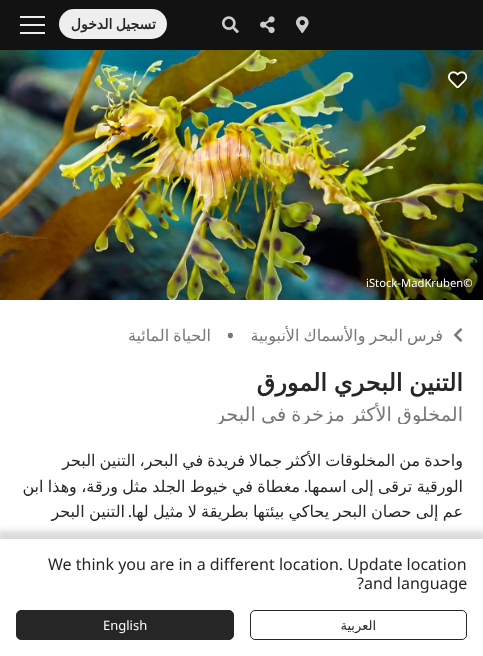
<svg xmlns="http://www.w3.org/2000/svg" width="483" height="656" viewBox="0 0 483 656">
  <style>
    .t1 { font: bold 14px DejaVu Sans; direction: rtl; fill: #262626; }
    .t2 { font: 11.25px Noto Sans; fill: #fff; }
    .t3 { font: 16px DejaVu Sans; direction: rtl; fill: #777; }
    .t4 { font: bold 18px Noto Sans; fill: #777; }
    .t5 { font: bold 24px DejaVu Sans; direction: rtl; fill: #262626; }
    .t6 { font: 19.25px DejaVu Sans; direction: rtl; fill: #777; }
    .t7 { font: 16px DejaVu Sans; direction: rtl; fill: #262626; }
    .t8 { font: 16px Noto Sans; direction: rtl; fill: #262626; }
    .t9 { font: 16px Noto Sans; fill: #262626; }
    .t10 { font: 13px DejaVu Sans; direction: rtl; fill: #262626; }
    .t11 { font: 13px Noto Sans; fill: #fff; }
  </style>
  <defs>
    <clipPath id="clip1"><rect x="20" y="324" width="443" height="100"/></clipPath>
    <clipPath id="clip2"><rect x="20" y="448" width="443" height="154"/></clipPath>
  </defs>
  <rect width="100%" height="100%" fill="#fff"/>
  <rect x="0" y="0" width="483" height="50" fill="#121212"/>
  <image x="296" y="16" width="13" height="18" href="images/1.png"/>
  <image x="260" y="16" width="15" height="18" href="images/2.png"/>
  <image x="222" y="16" width="17" height="17" href="images/3.png"/>
  <rect x="59" y="9" width="108" height="30" rx="15" fill="#eee"/>
  <text x="156" y="29" word-spacing="-1" class="t1">تسجيل الدخول</text>
  <rect x="20" y="24" width="25" height="2" fill="#eee"/>
  <rect x="20" y="16" width="25" height="2" fill="#eee"/>
  <rect x="20" y="32" width="25" height="2" fill="#eee"/>
  <image x="0" y="50" width="483" height="250" href="images/4.png"/>
  <image x="449" y="72" width="19" height="18" href="images/6.png"/>
  <image x="448" y="71" width="20" height="18" href="images/5.png"/>
  <text x="366" y="287" class="t2">iStock-MadKruben©</text>
  <image x="454" y="328" width="9" height="14" href="images/7.png"/>
  <text x="443" y="341" word-spacing="-1" class="t3">فرس البحر والأسماك الأنبوبية</text>
  <text x="227" y="342" class="t4">•</text>
  <text x="211" y="341" word-spacing="-1" class="t3">الحياة المائية</text>
  <g clip-path="url(#clip1)">
    <text x="463" y="391" word-spacing="-1" class="t5">التنين البحري المورق</text>
    <text x="463" y="421" word-spacing="-1" class="t6">المخلوق الأكثر مزخرة في البحر</text>
  </g>
  <g clip-path="url(#clip2)">
    <text x="463" y="466" word-spacing="-1" class="t7">واحدة من المخلوقات الأكثر جمالا فريدة في البحر، التنين البحر</text>
    <text x="463" y="492" word-spacing="-0.75" class="t7">الورقية ترقى إلى اسمها</text>
  </g>
  <text x="300" y="492" word-spacing="-0.75" class="t7">مغطاة في خيوط الجلد مثل ورقة، وهذا ابن</text>
  <text x="308" y="492" class="t8">.</text>
  <g clip-path="url(#clip2)">
    <text x="463" y="517" word-spacing="-0.75" class="t7">عم إلى حصان البحر يحاكي بيئتها بطريقة لا مثيل لها</text>
  </g>
  <text x="132" y="517" class="t8">.</text>
  <text x="125" y="517" word-spacing="-0.75" class="t7">التنين البحر</text>
  <rect x="-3" y="531" width="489" height="123" fill="#00000026" filter="blur(3px)"/>
  <rect x="0" y="539" width="483" height="117" fill="#fff"/>
  <text x="48" y="570" class="t9">We think you are in a different location. Update location</text>
  <text x="357" y="589" class="t9">?and language</text>
  <rect x="250.5" y="610.5" width="216" height="29" rx="4.5" fill="none" stroke="#262626"/>
  <text x="376" y="630" class="t10">العربية</text>
  <rect x="16.5" y="610.5" width="217" height="29" rx="4.5" fill="#262626" stroke="#262626"/>
  <text x="103" y="630" class="t11">English</text>
</svg>
